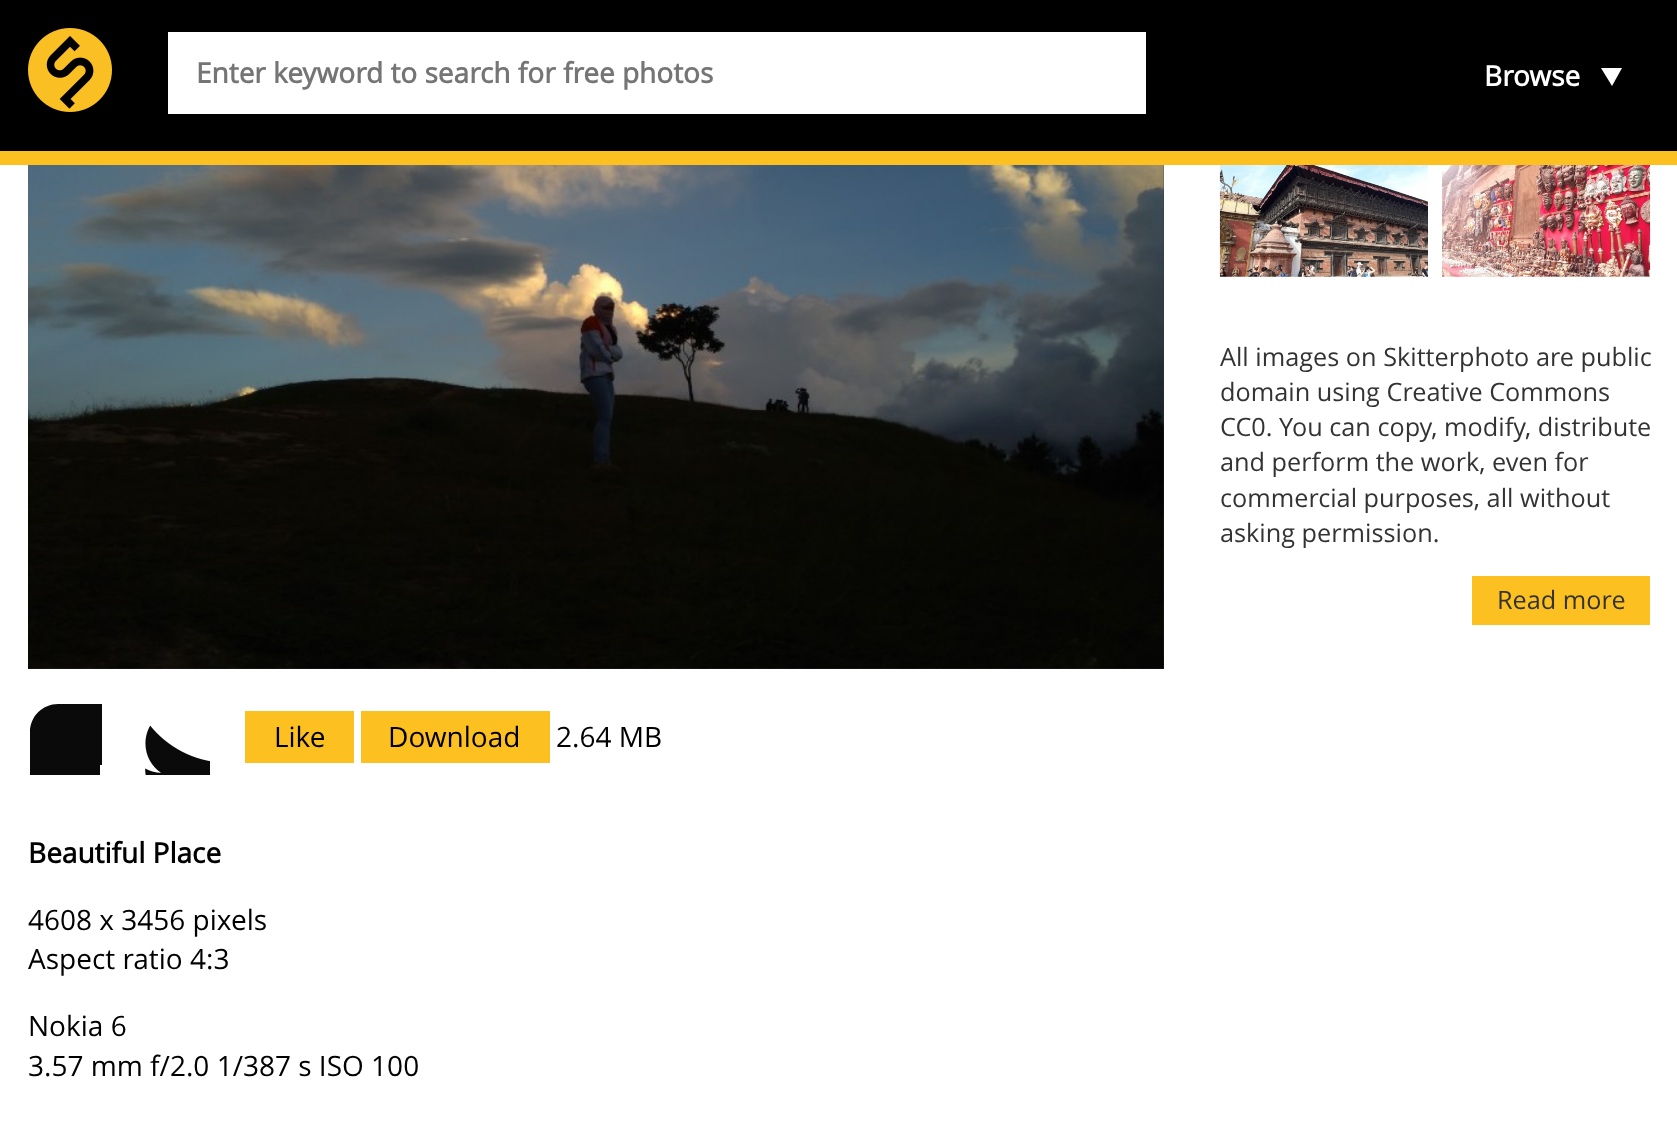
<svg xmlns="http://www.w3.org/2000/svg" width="1677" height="1130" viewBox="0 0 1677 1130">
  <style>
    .t1 { font: bold 28px Open Sans; fill: #757575; }
    .t2 { font: bold 28px Open Sans; fill: #fff; }
    .t3 { font: 25.25px Open Sans; fill: #333; }
    .t4 { font: 28px Open Sans; fill: #000; }
    .t5 { font: bold 28px Open Sans; fill: #000; }
  </style>
  <defs>
    <clipPath id="clip1"><rect x="28" y="702" width="74" height="73"/></clipPath>
  </defs>
  <rect width="100%" height="100%" fill="#fff"/>
  <rect x="0" y="0" width="1677" height="151" fill="#000"/>
  <rect x="0" y="151" width="1677" height="14" fill="#fcc021"/>
  <image x="28" y="28" width="84" height="84" href="images/1.png"/>
  <rect x="168" y="32" width="978" height="82" fill="#fff"/>
  <text x="196" y="83" class="t1">Enter keyword to search for free photos</text>
  <text x="1484" y="86" class="t2">Browse</text>
  <path d="M1601 68H1622L1612 86Z" fill="#fff"/>
  <image x="1219" y="165" width="209" height="112" href="images/2.png"/>
  <image x="1442" y="165" width="209" height="112" href="images/3.png"/>
  <text x="1220" y="366" class="t3">All images on Skitterphoto are public</text>
  <text x="1220" y="401" class="t3">domain using Creative Commons</text>
  <text x="1220" y="436" class="t3">CC0. You can copy, modify, distribute</text>
  <text x="1220" y="471" class="t3">and perform the work, even for</text>
  <text x="1220" y="507" class="t3">commercial purposes, all without</text>
  <text x="1220" y="542" class="t3">asking permission.</text>
  <rect x="1472" y="576" width="178" height="49" fill="#fcc021"/>
  <text x="1497" y="609" class="t3">Read more</text>
  <rect x="28" y="165" width="1136" height="504" fill="#2d3840"/>
  <image x="28" y="165" width="1136" height="504" href="images/4.png"/>
  <g clip-path="url(#clip1)">
    <path d="M173 704H58C43 704 30 716 30 732V846C30 862 43 875 58 875H173C188 875 201 862 201 846V732C201 716 188 704 173 704ZM176 789H148V864H116V789H100V765H116V749C116 727 125 714 150 714H180V741H156C149 741 148 744 148 751V765H180Z" fill="#0a0a0a"/>
  </g>
  <image x="145" y="725" width="65" height="50" href="images/5.png"/>
  <rect x="245" y="711" width="109" height="52" fill="#fcc021"/>
  <text x="274" y="747" class="t4">Like</text>
  <rect x="361" y="711" width="189" height="52" fill="#fcc021"/>
  <text x="388" y="747" class="t4">Download</text>
  <text x="556" y="747" class="t4">2.64 MB</text>
  <text x="28" y="863" class="t5">Beautiful Place</text>
  <text x="28" y="930" class="t4">4608 x 3456 pixels</text>
  <text x="28" y="969" class="t4">Aspect ratio 4:3</text>
  <text x="28" y="1036" class="t4">Nokia 6</text>
  <text x="28" y="1076" class="t4">3.57 mm f/2.0 1/387 s ISO 100</text>
</svg>
